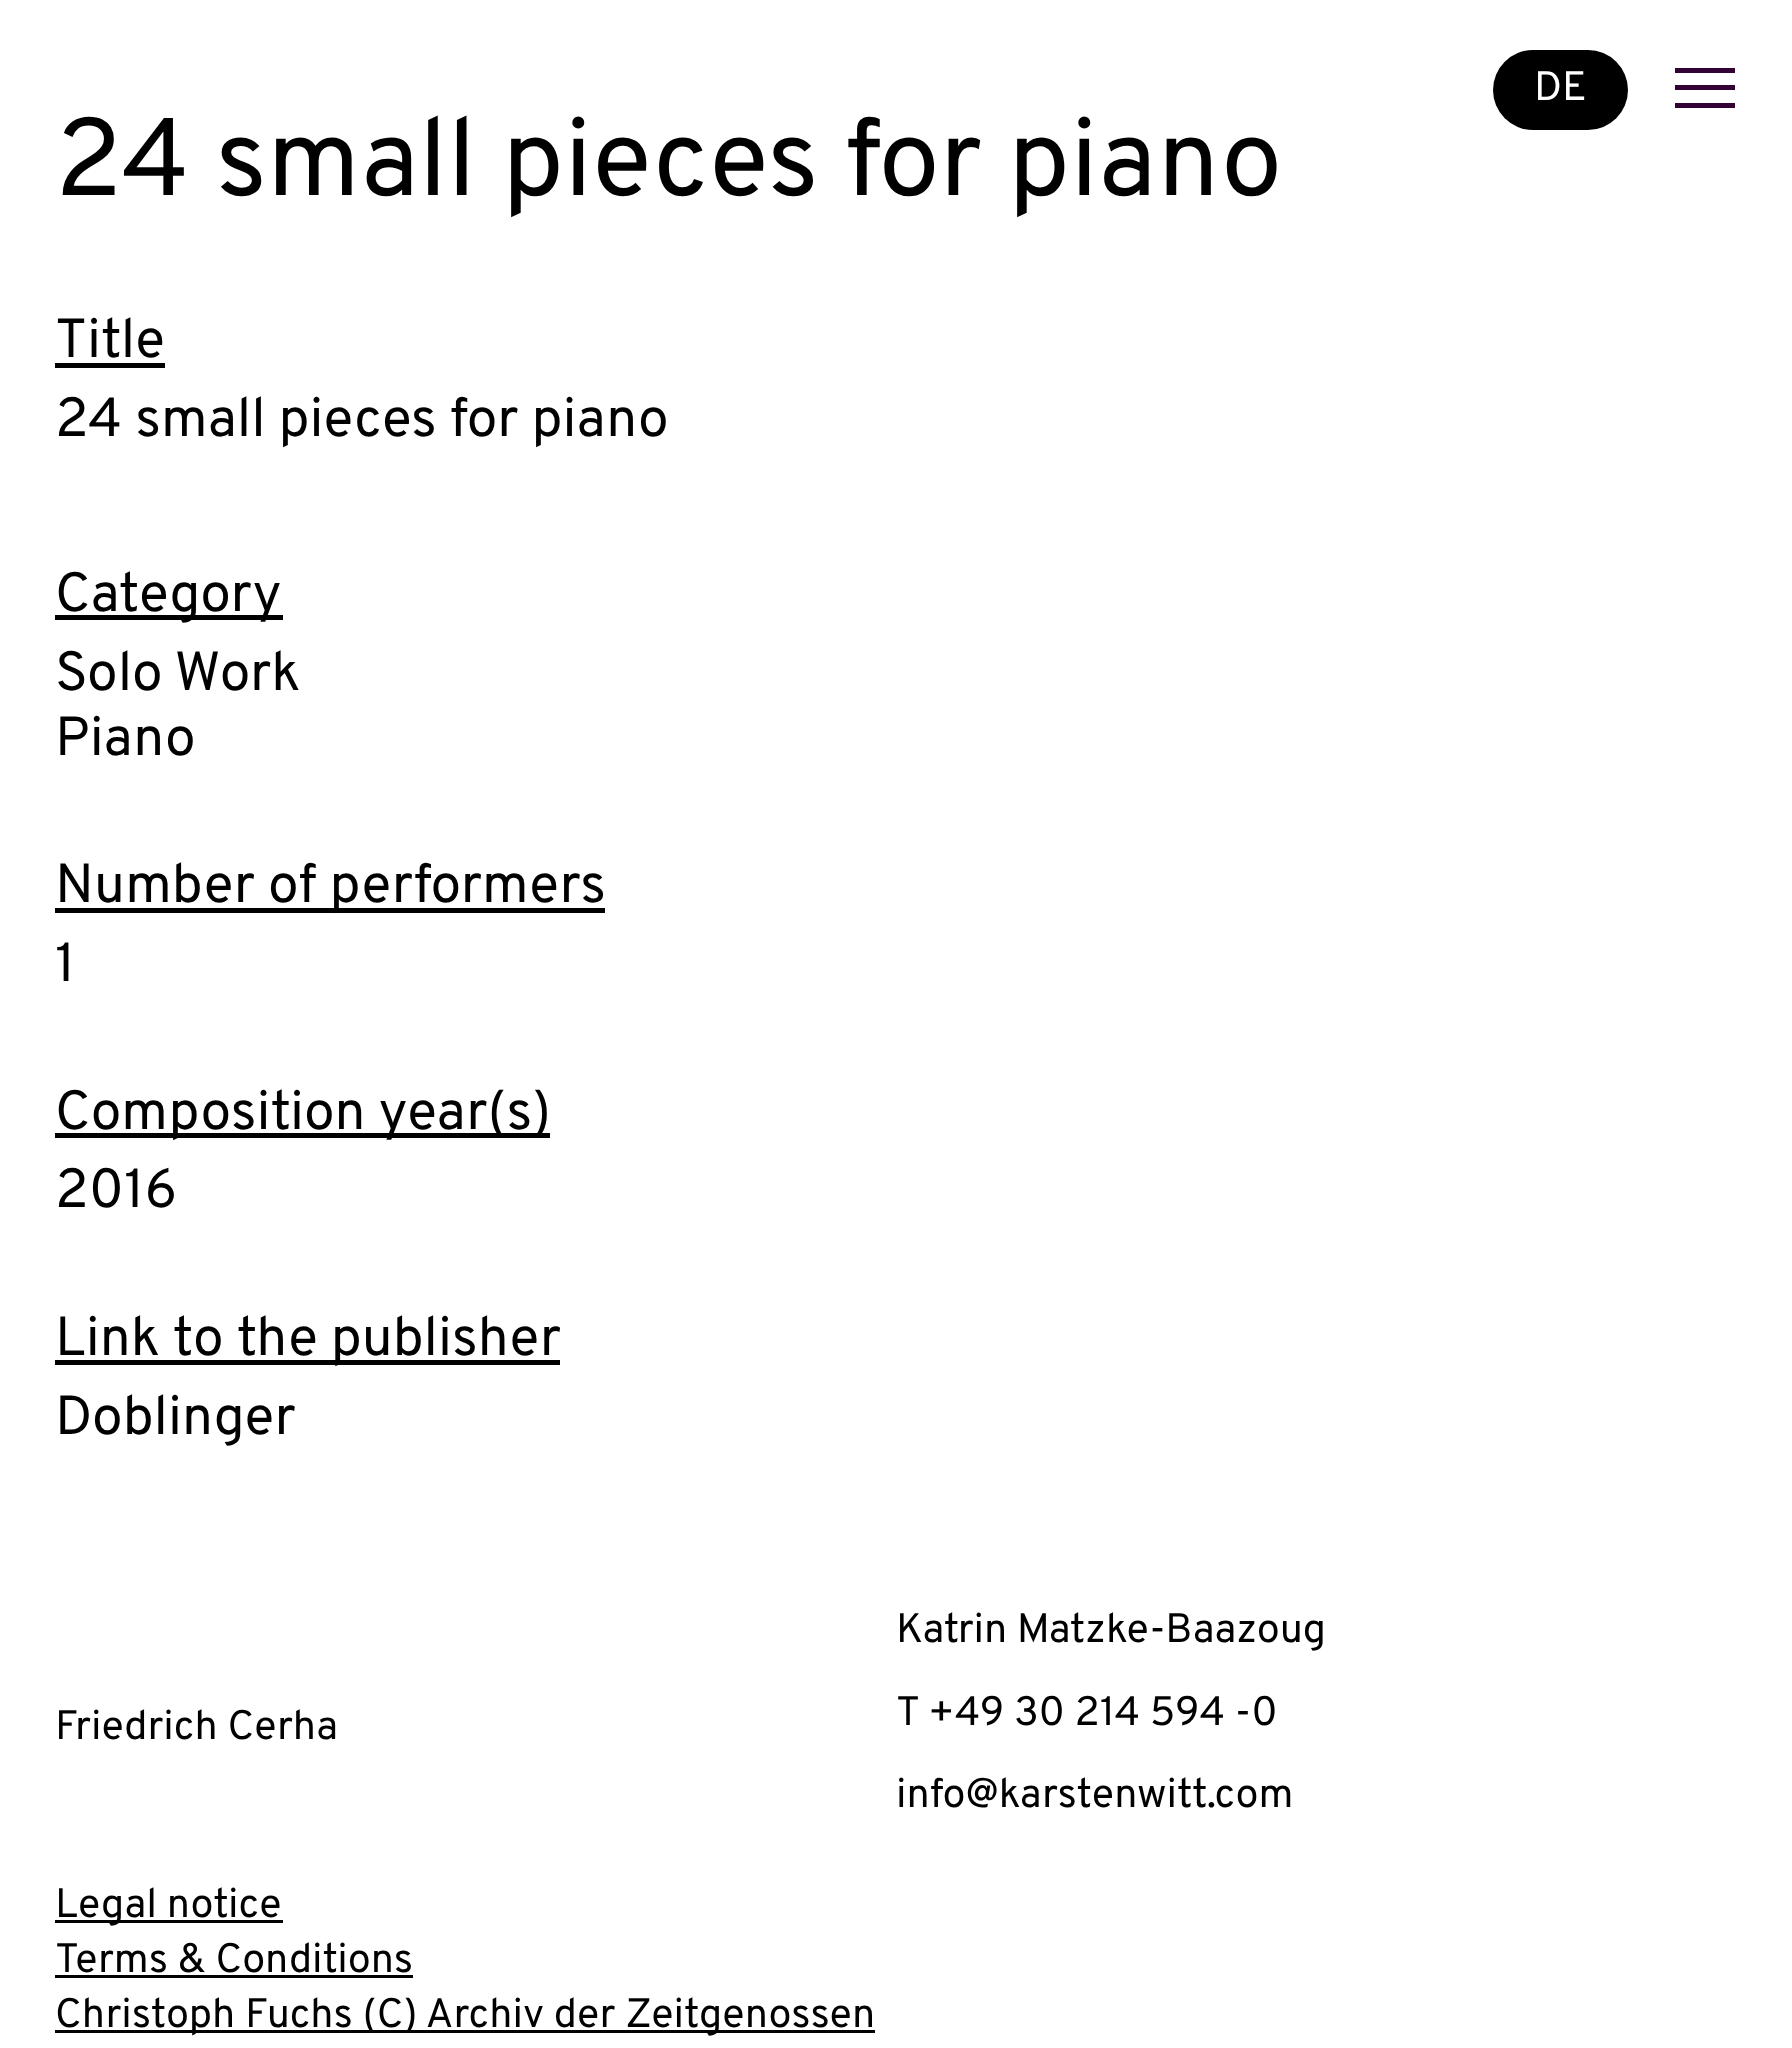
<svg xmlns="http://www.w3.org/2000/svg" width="1792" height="2048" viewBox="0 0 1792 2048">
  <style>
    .t1 { font: 41.25px Overpass; fill: #fff; }
    .t2 { font: 110px Overpass; fill: #000; }
    .t3 { font: 55px Overpass; fill: #000; }
    .t4 { font: 41.25px Overpass; fill: #000; }
  </style>
  <rect width="100%" height="100%" fill="#fff"/>
  <rect x="1493" y="50" width="135" height="80" rx="40" fill="#000"/>
  <text x="1534" y="100" class="t1">DE</text>
  <rect x="1675" y="68" width="60" height="5" fill="#330133"/>
  <rect x="1675" y="85" width="60" height="5" fill="#330133"/>
  <rect x="1675" y="103" width="60" height="5" fill="#330133"/>
  <text x="55" y="195" class="t2">24 small pieces for piano</text>
  <text x="55" y="357" class="t3">Title</text>
  <rect x="55" y="363" width="110" height="5" fill="#000"/>
  <text x="55" y="436" class="t3">24 small pieces for piano</text>
  <rect x="55" y="615" width="228" height="5" fill="#000"/>
  <text x="55" y="611" class="t3">Category</text>
  <text x="55" y="690" class="t3">Solo Work</text>
  <text x="55" y="755" class="t3">Piano</text>
  <rect x="55" y="908" width="550" height="5" fill="#000"/>
  <text x="55" y="902" class="t3">Number of performers</text>
  <text x="55" y="981" class="t3">1</text>
  <rect x="55" y="1133" width="495" height="5" fill="#000"/>
  <text x="55" y="1129" class="t3">Composition year(s)</text>
  <text x="55" y="1207" class="t3">2016</text>
  <rect x="55" y="1360" width="505" height="5" fill="#000"/>
  <text x="55" y="1355" class="t3">Link to the publisher</text>
  <text x="55" y="1434" class="t3">Doblinger</text>
  <text x="55" y="1739" class="t4">Friedrich Cerha</text>
  <text x="896" y="1642" class="t4">Katrin Matzke-Baazoug</text>
  <text x="896" y="1725" class="t4">T +49 30 214 594 -0</text>
  <text x="896" y="1807" class="t4">info@karstenwitt.com</text>
  <rect x="55" y="1920" width="228" height="3" fill="#000"/>
  <text x="55" y="1917" class="t4">Legal notice</text>
  <text x="55" y="1972" class="t4">Terms &amp; Conditions</text>
  <rect x="55" y="1975" width="358" height="3" fill="#000"/>
  <rect x="55" y="2030" width="820" height="3" fill="#000"/>
  <text x="55" y="2027" class="t4">Christoph Fuchs (C) Archiv der Zeitgenossen</text>
</svg>
